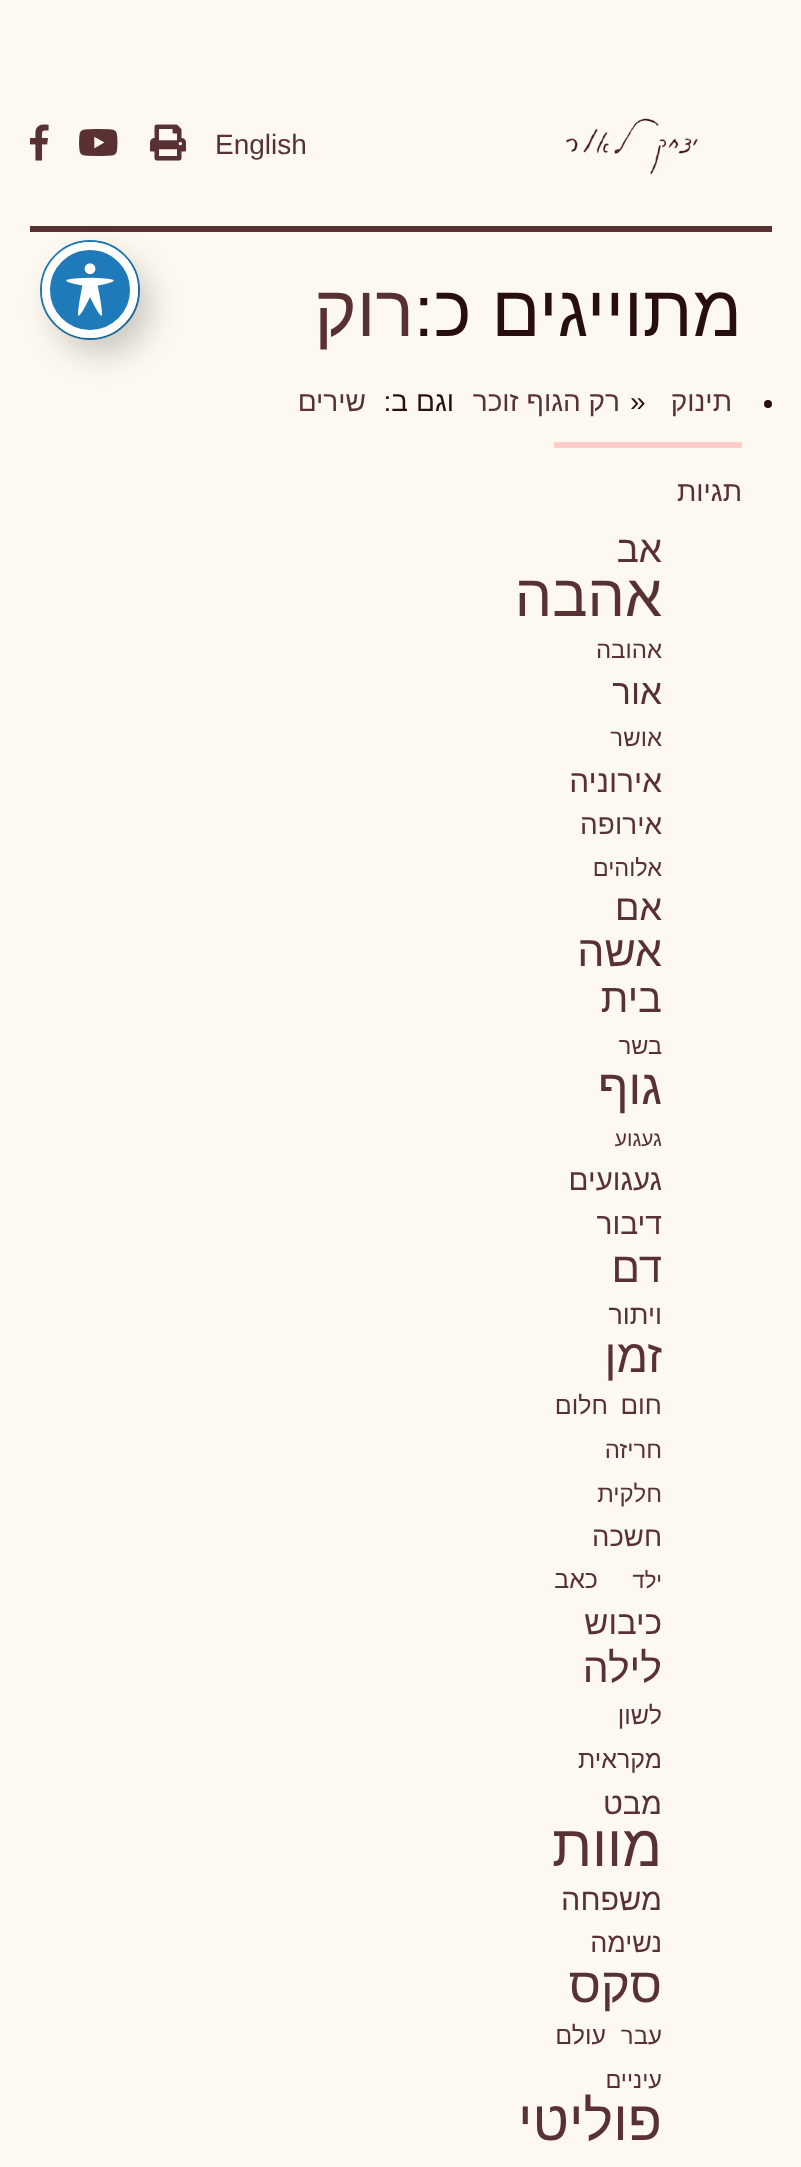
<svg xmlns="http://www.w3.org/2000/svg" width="801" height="2167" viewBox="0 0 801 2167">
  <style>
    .t1 { font: 28px Liberation Sans; fill: #593133; }
    .t2 { font: 72px Liberation Sans; direction: rtl; fill: #280e0d; }
    .t3 { font: 72px Liberation Sans; direction: rtl; fill: #593133; }
    .t4 { font: 28px Liberation Sans; direction: rtl; fill: #593133; }
    .t5 { font: 28px Liberation Sans; fill: #280e0d; }
    .t6 { font: 28px Liberation Sans; direction: rtl; fill: #280e0d; }
    .t7 { font: 37px Liberation Sans; direction: rtl; fill: #593133; }
    .t8 { font: 59px Liberation Sans; direction: rtl; fill: #593133; }
    .t9 { font: 24px Liberation Sans; direction: rtl; fill: #593133; }
    .t10 { font: 35px Liberation Sans; direction: rtl; fill: #593133; }
    .t11 { font: 31.5px Liberation Sans; direction: rtl; fill: #593133; }
    .t12 { font: 23.5px Liberation Sans; direction: rtl; fill: #593133; }
    .t13 { font: 36px Liberation Sans; direction: rtl; fill: #593133; }
    .t14 { font: 43px Liberation Sans; direction: rtl; fill: #593133; }
    .t15 { font: 40px Liberation Sans; direction: rtl; fill: #593133; }
    .t16 { font: 49px Liberation Sans; direction: rtl; fill: #593133; }
    .t17 { font: 21px Liberation Sans; direction: rtl; fill: #593133; }
    .t18 { font: 29.5px Liberation Sans; direction: rtl; fill: #593133; }
    .t19 { font: 30px Liberation Sans; direction: rtl; fill: #593133; }
    .t20 { font: 42px Liberation Sans; direction: rtl; fill: #593133; }
    .t21 { font: 27px Liberation Sans; direction: rtl; fill: #593133; }
    .t22 { font: 46px Liberation Sans; direction: rtl; fill: #593133; }
    .t23 { font: 26px Liberation Sans; direction: rtl; fill: #593133; }
    .t24 { font: 25px Liberation Sans; direction: rtl; fill: #593133; }
    .t25 { font: 27.5px Liberation Sans; direction: rtl; fill: #593133; }
    .t26 { font: 22px Liberation Sans; direction: rtl; fill: #593133; }
    .t27 { font: 33px Liberation Sans; direction: rtl; fill: #593133; }
    .t28 { font: 41px Liberation Sans; direction: rtl; fill: #593133; }
    .t29 { font: 30.5px Liberation Sans; direction: rtl; fill: #593133; }
    .t30 { font: 58px Liberation Sans; direction: rtl; fill: #593133; }
    .t31 { font: 56px Liberation Sans; direction: rtl; fill: #593133; }
  </style>
  <rect width="100%" height="100%" fill="#fdf9f0"/>
  <image x="566" y="118" width="132" height="57" href="images/1.png"/>
  <text x="215" y="154" class="t1">English</text>
  <image x="150" y="124" width="36" height="37" href="images/2.png"/>
  <image x="79" y="129" width="39" height="27" href="images/3.png"/>
  <image x="30" y="124" width="19" height="37" href="images/4.png"/>
  <rect x="30" y="226" width="742" height="6" fill="#593133"/>
  <text x="742" y="336" class="t2">מתוייגים כ:</text>
  <text x="414" y="336" class="t3">רוק</text>
  <circle cx="768" cy="404" r="4" fill="#280e0d"/>
  <text x="732" y="411" class="t4">תינוק</text>
  <text x="630" y="411" class="t5">»</text>
  <text x="620" y="411" class="t4">רק הגוף זוכר</text>
  <text x="454" y="411" class="t6">וגם ב:</text>
  <text x="366" y="411" class="t4">שירים</text>
  <rect x="554" y="442" width="188" height="6" fill="#ffcdcc"/>
  <text x="742" y="501" class="t4">תגיות</text>
  <text x="662" y="562" class="t7">אב</text>
  <text x="662" y="616" class="t8">אהבה</text>
  <text x="662" y="658" class="t9">אהובה</text>
  <text x="662" y="704" class="t10">אור</text>
  <text x="662" y="746" class="t9">אושר</text>
  <text x="662" y="792" class="t11">אירוניה</text>
  <text x="662" y="834" class="t4">אירופה</text>
  <text x="662" y="876" class="t12">אלוהים</text>
  <text x="662" y="920" class="t13">אם</text>
  <text x="662" y="966" class="t14">אשה</text>
  <text x="662" y="1012" class="t15">בית</text>
  <text x="662" y="1054" class="t12">בשר</text>
  <text x="662" y="1104" class="t16">גוף</text>
  <text x="662" y="1146" class="t17">געגוע</text>
  <text x="662" y="1190" class="t18">געגועים</text>
  <text x="662" y="1234" class="t19">דיבור</text>
  <text x="662" y="1282" class="t20">דם</text>
  <text x="662" y="1324" class="t21">ויתור</text>
  <text x="662" y="1372" class="t22">זמן</text>
  <text x="662" y="1414" class="t23">חום</text>
  <text x="608" y="1414" class="t24">חלום</text>
  <text x="662" y="1458" class="t9">חריזה</text>
  <text x="662" y="1502" class="t9">חלקית</text>
  <text x="662" y="1546" class="t25">חשכה</text>
  <text x="662" y="1588" class="t26">ילד</text>
  <text x="598" y="1588" class="t24">כאב</text>
  <text x="662" y="1634" class="t27">כיבוש</text>
  <text x="662" y="1682" class="t28">לילה</text>
  <text x="662" y="1724" class="t24">לשון</text>
  <text x="662" y="1768" class="t24">מקראית</text>
  <text x="662" y="1814" class="t29">מבט</text>
  <text x="662" y="1866" class="t30">מוות</text>
  <text x="662" y="1910" class="t29">משפחה</text>
  <text x="662" y="1952" class="t21">נשימה</text>
  <text x="662" y="2002" class="t16">סקס</text>
  <text x="662" y="2044" class="t9">עבר</text>
  <text x="606" y="2044" class="t24">עולם</text>
  <text x="662" y="2088" class="t12">עיניים</text>
  <text x="662" y="2140" class="t31">פוליטי</text>
  <circle cx="90" cy="290" r="49" fill="none" stroke="#1e7ab9" stroke-width="2"/>
  <rect x="54" y="258" width="96" height="96" rx="48" fill="#00000033" filter="blur(16px)"/>
  <circle cx="90" cy="290" r="44" fill="#1e7ab9" stroke="#fff" stroke-width="8"/>
  <image x="66" y="263" width="48" height="53" href="images/5.png"/>
</svg>
